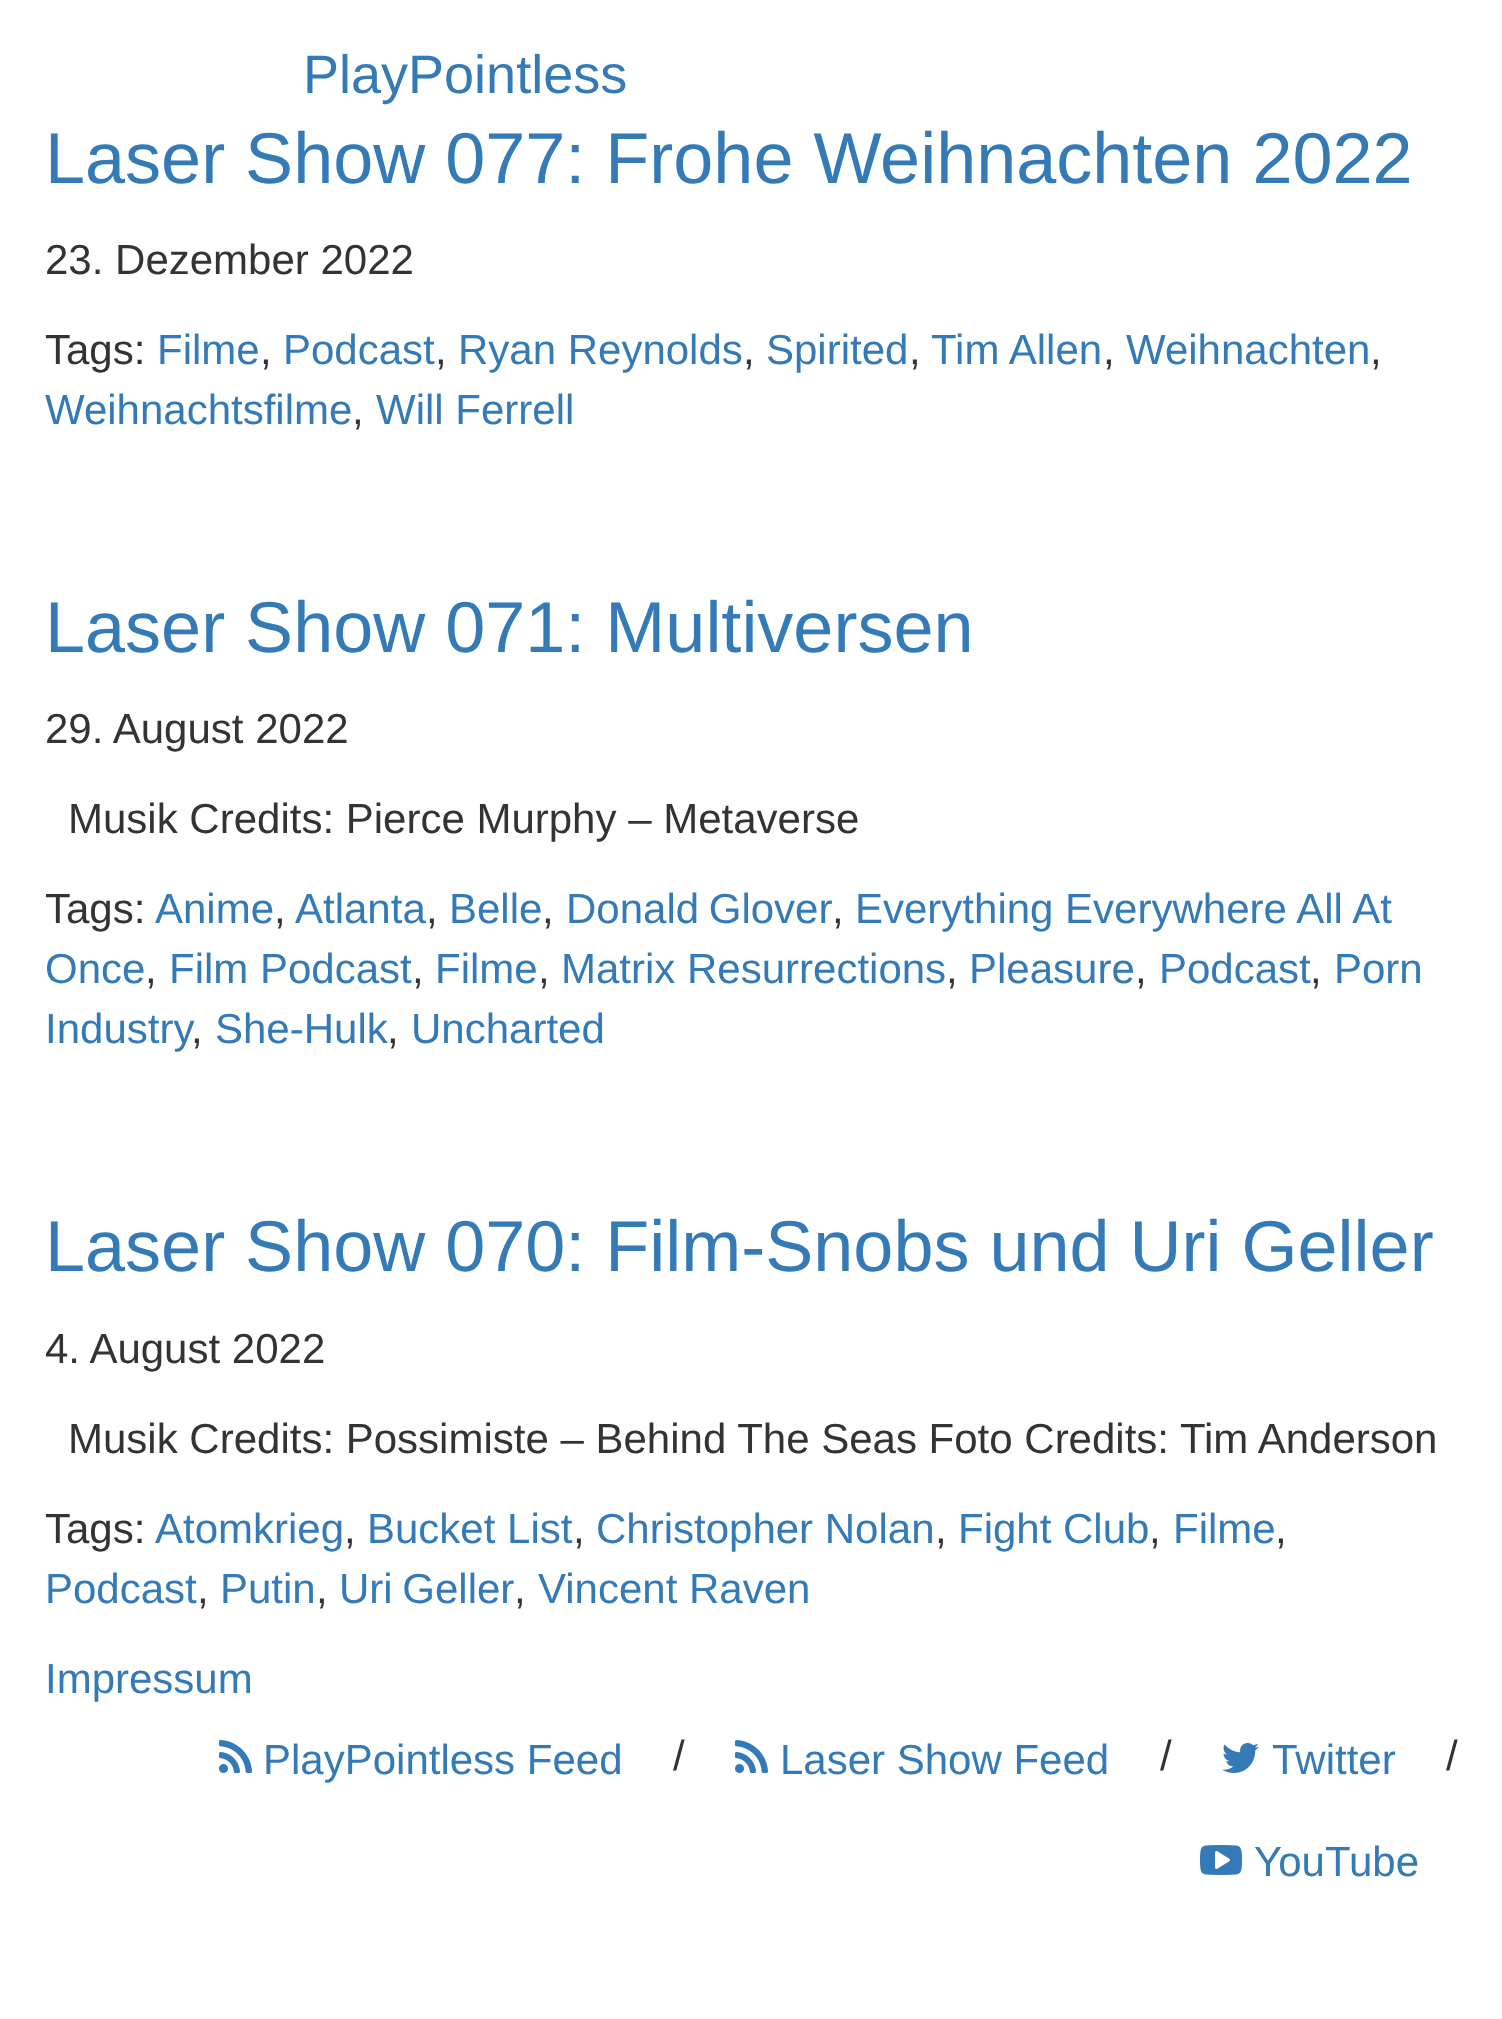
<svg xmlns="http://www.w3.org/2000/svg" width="1502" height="2019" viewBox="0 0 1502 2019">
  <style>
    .t1 { font: 54px Liberation Sans; fill: #337ab7; }
    .t2 { font: 72px Liberation Sans; fill: #337ab7; }
    .t3 { font: 42px Liberation Sans; fill: #333; }
    .t4 { font: 42px Liberation Sans; fill: #337ab7; }
  </style>
  <rect width="100%" height="100%" fill="#fff"/>
  <text x="303" y="93" class="t1">PlayPointless</text>
  <text x="45" y="183" class="t2">Laser Show 077: Frohe Weihnachten 2022</text>
  <text x="45" y="274" class="t3">23. Dezember 2022</text>
  <text x="45" y="364" class="t3">Tags:</text>
  <text x="157" y="364" class="t4">Filme</text>
  <text x="260" y="364" class="t3">,</text>
  <text x="283" y="364" class="t4">Podcast</text>
  <text x="435" y="364" class="t3">,</text>
  <text x="458" y="364" class="t4">Ryan Reynolds</text>
  <text x="743" y="364" class="t3">,</text>
  <text x="766" y="364" class="t4">Spirited</text>
  <text x="909" y="364" class="t3">,</text>
  <text x="931" y="364" class="t4">Tim Allen</text>
  <text x="1103" y="364" class="t3">,</text>
  <text x="1126" y="364" class="t4">Weihnachten</text>
  <text x="1370" y="364" class="t3">,</text>
  <text x="45" y="424" class="t4">Weihnachtsfilme</text>
  <text x="352" y="424" class="t3">,</text>
  <text x="376" y="424" class="t4">Will Ferrell</text>
  <text x="45" y="652" class="t2">Laser Show 071: Multiversen</text>
  <text x="45" y="743" class="t3">29. August 2022</text>
  <text x="68" y="833" class="t3">Musik Credits: Pierce Murphy – Metaverse</text>
  <text x="45" y="923" class="t3">Tags:</text>
  <text x="155" y="923" class="t4">Anime</text>
  <text x="274" y="923" class="t3">,</text>
  <text x="295" y="923" class="t4">Atlanta</text>
  <text x="426" y="923" class="t3">,</text>
  <text x="449" y="923" class="t4">Belle</text>
  <text x="542" y="923" class="t3">,</text>
  <text x="566" y="923" word-spacing="-2" class="t4">Donald Glover</text>
  <text x="832" y="923" class="t3">,</text>
  <text x="855" y="923" class="t4">Everything Everywhere All At</text>
  <text x="45" y="983" class="t4">Once</text>
  <text x="145" y="983" class="t3">,</text>
  <text x="169" y="983" class="t4">Film Podcast</text>
  <text x="412" y="983" class="t3">,</text>
  <text x="435" y="983" class="t4">Filme</text>
  <text x="538" y="983" class="t3">,</text>
  <text x="561" y="983" class="t4">Matrix Resurrections</text>
  <text x="946" y="983" class="t3">,</text>
  <text x="969" y="983" class="t4">Pleasure</text>
  <text x="1135" y="983" class="t3">,</text>
  <text x="1159" y="983" class="t4">Podcast</text>
  <text x="1310" y="983" class="t3">,</text>
  <text x="1334" y="983" class="t4">Porn</text>
  <text x="45" y="1043" class="t4">Industry</text>
  <text x="191" y="1043" class="t3">,</text>
  <text x="215" y="1043" class="t4">She-Hulk</text>
  <text x="387" y="1043" class="t3">,</text>
  <text x="411" y="1043" class="t4">Uncharted</text>
  <text x="45" y="1271" class="t2">Laser Show 070: Film-Snobs und Uri Geller</text>
  <text x="45" y="1363" class="t3">4. August 2022</text>
  <text x="68" y="1453" class="t3">Musik Credits: Possimiste – Behind The Seas Foto Credits: Tim Anderson</text>
  <text x="45" y="1543" class="t3">Tags:</text>
  <text x="155" y="1543" class="t4">Atomkrieg</text>
  <text x="344" y="1543" class="t3">,</text>
  <text x="367" y="1543" class="t4">Bucket List</text>
  <text x="573" y="1543" class="t3">,</text>
  <text x="596" y="1543" class="t4">Christopher Nolan</text>
  <text x="935" y="1543" class="t3">,</text>
  <text x="958" y="1543" class="t4">Fight Club</text>
  <text x="1149" y="1543" class="t3">,</text>
  <text x="1173" y="1543" class="t4">Filme</text>
  <text x="1275" y="1543" class="t3">,</text>
  <text x="45" y="1603" class="t4">Podcast</text>
  <text x="197" y="1603" class="t3">,</text>
  <text x="220" y="1603" class="t4">Putin</text>
  <text x="316" y="1603" class="t3">,</text>
  <text x="339" y="1603" word-spacing="-2" class="t4">Uri Geller</text>
  <text x="514" y="1603" class="t3">,</text>
  <text x="538" y="1603" class="t4">Vincent Raven</text>
  <text x="45" y="1693" class="t4">Impressum</text>
  <image x="219" y="1740" width="33" height="33" href="images/1.png"/>
  <text x="263" y="1774" class="t4">PlayPointless Feed</text>
  <text x="673" y="1770" class="t3">/</text>
  <image x="735" y="1740" width="33" height="33" href="images/1.png"/>
  <text x="780" y="1774" class="t4">Laser Show Feed</text>
  <text x="1160" y="1770" class="t3">/</text>
  <image x="1222" y="1743" width="37" height="30" href="images/2.png"/>
  <text x="1272" y="1774" class="t4">Twitter</text>
  <text x="1446" y="1770" class="t3">/</text>
  <image x="1200" y="1845" width="42" height="30" href="images/3.png"/>
  <text x="1254" y="1876" class="t4">YouTube</text>
</svg>
